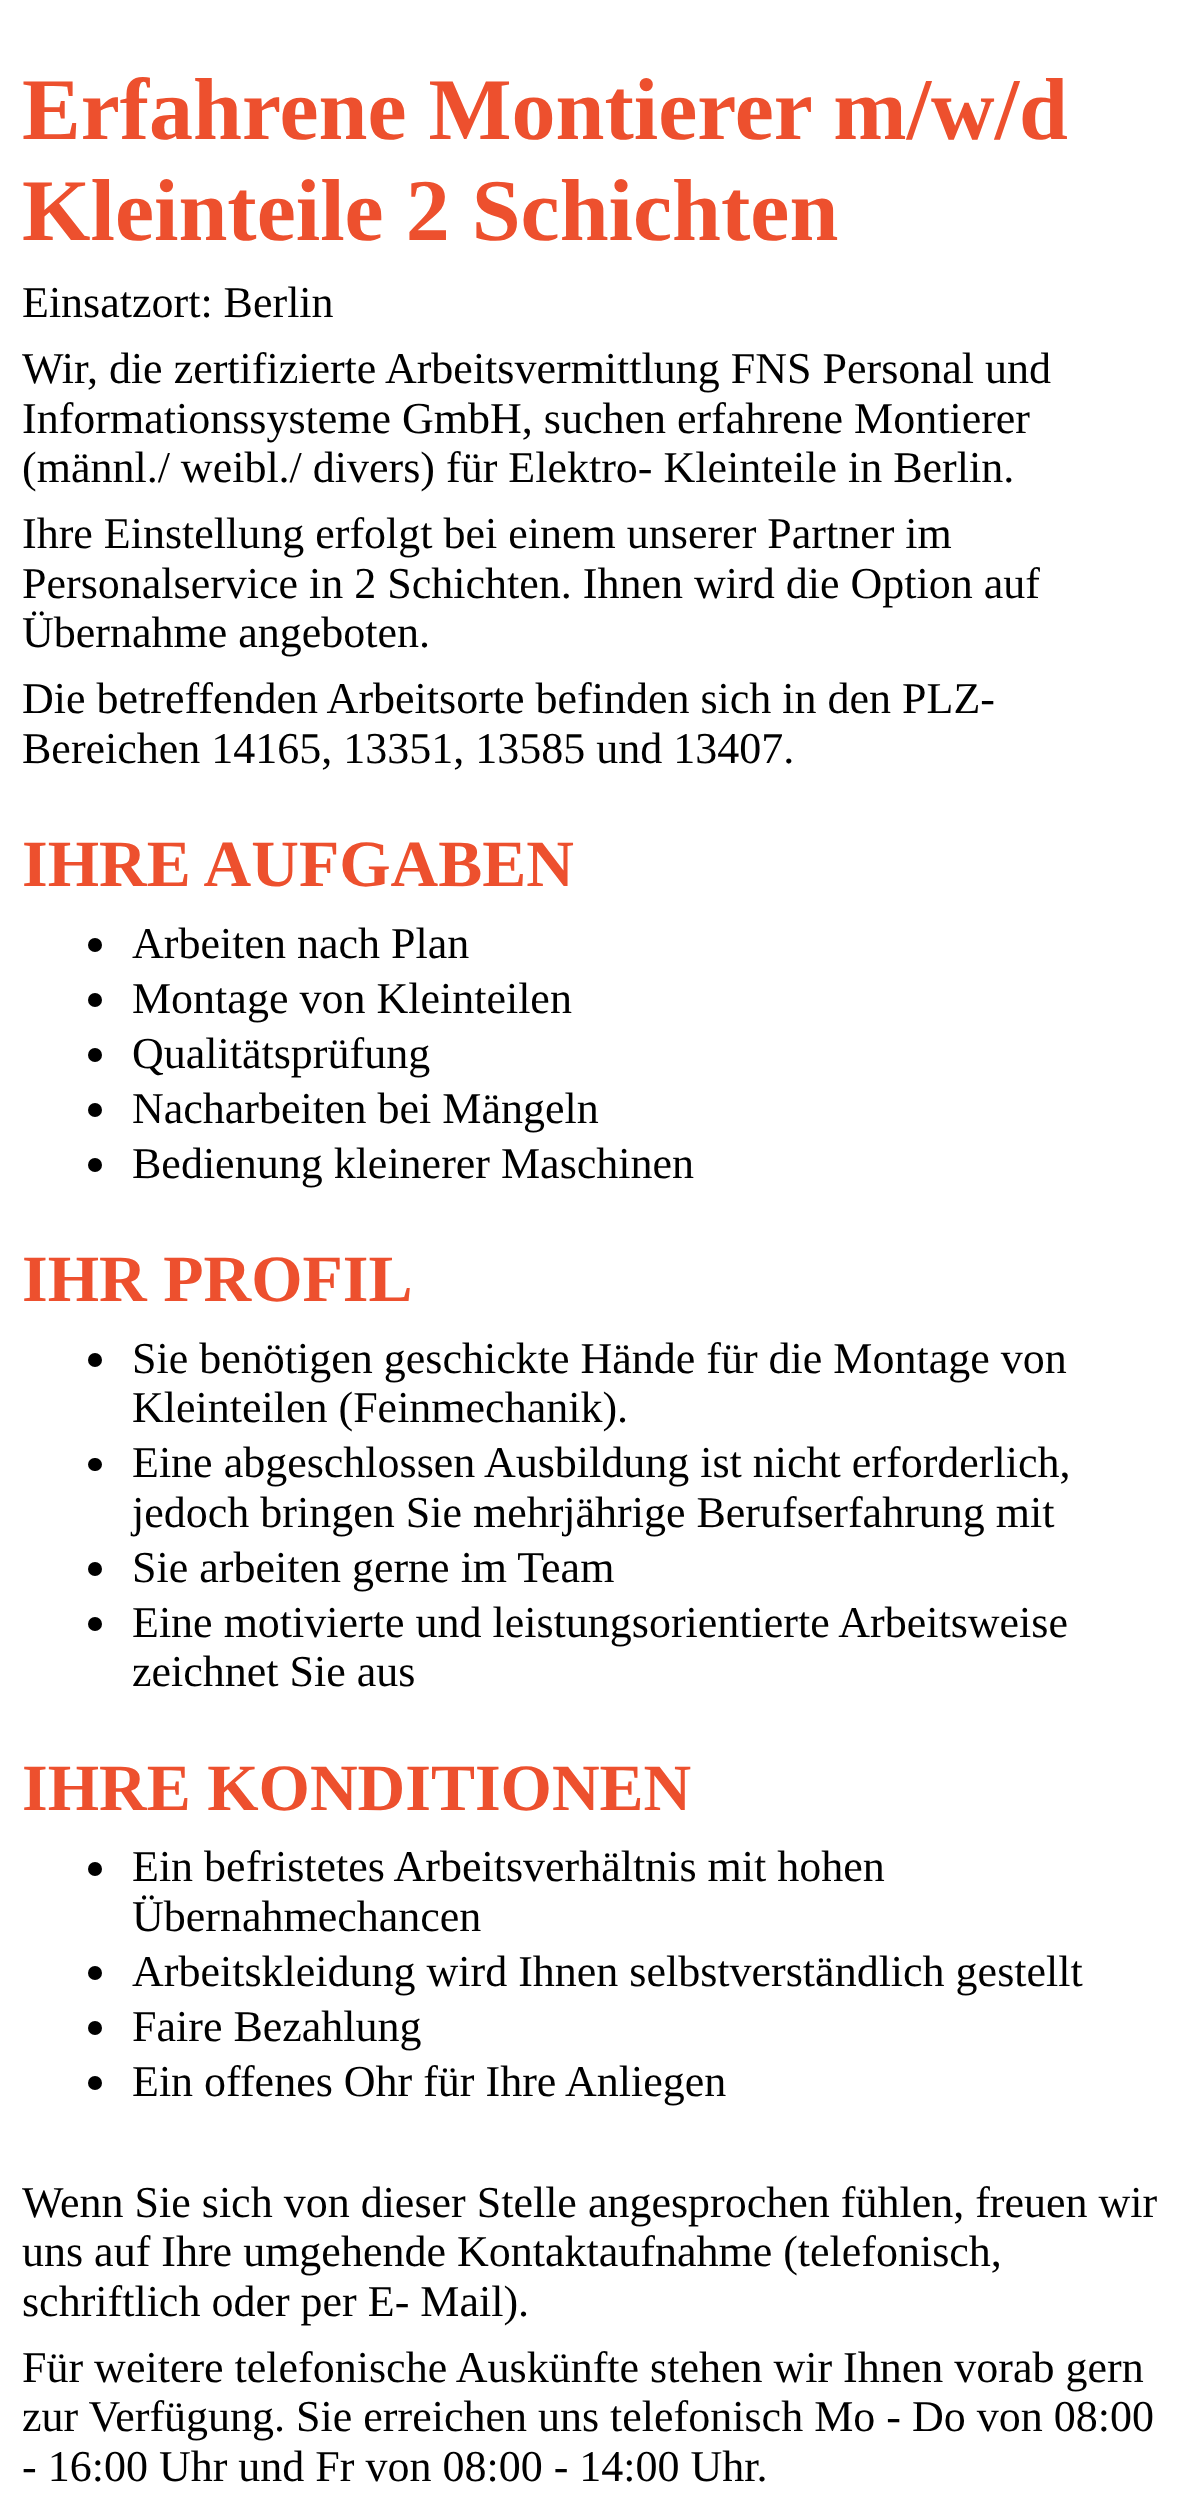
<svg xmlns="http://www.w3.org/2000/svg" width="1185" height="2516" viewBox="0 0 1185 2516">
  <style>
    .t1 { font: bold 88px Liberation Serif; fill: #ed502e; }
    .t2 { font: 44px Liberation Serif; fill: #000; }
    .t3 { font: bold 66px Liberation Serif; fill: #ed502e; }
  </style>
  <rect width="100%" height="100%" fill="#fff"/>
  <text x="22" y="139" class="t1">Erfahrene Montierer m/w/d</text>
  <text x="22" y="240" class="t1">Kleinteile 2 Schichten</text>
  <text x="22" y="317" class="t2">Einsatzort: Berlin</text>
  <text x="22" y="383" class="t2">Wir, die zertifizierte Arbeitsvermittlung FNS Personal und</text>
  <text x="22" y="433" class="t2">Informationssysteme GmbH, suchen erfahrene Montierer</text>
  <text x="22" y="482" class="t2">(männl./ weibl./ divers) für Elektro- Kleinteile in Berlin.</text>
  <text x="22" y="548" class="t2">Ihre Einstellung erfolgt bei einem unserer Partner im</text>
  <text x="22" y="598" class="t2">Personalservice in 2 Schichten. Ihnen wird die Option auf</text>
  <text x="22" y="647" class="t2">Übernahme angeboten.</text>
  <text x="22" y="713" class="t2">Die betreffenden Arbeitsorte befinden sich in den PLZ-</text>
  <text x="22" y="763" class="t2">Bereichen 14165, 13351, 13585 und 13407.</text>
  <text x="22" y="886" class="t3">IHRE AUFGABEN</text>
  <circle cx="95" cy="945" r="7" fill="#000"/>
  <text x="132" y="958" class="t2">Arbeiten nach Plan</text>
  <circle cx="95" cy="1000" r="7" fill="#000"/>
  <text x="132" y="1013" class="t2">Montage von Kleinteilen</text>
  <circle cx="95" cy="1055" r="7" fill="#000"/>
  <text x="132" y="1068" class="t2">Qualitätsprüfung</text>
  <circle cx="95" cy="1110" r="7" fill="#000"/>
  <text x="132" y="1123" class="t2">Nacharbeiten bei Mängeln</text>
  <circle cx="95" cy="1165" r="7" fill="#000"/>
  <text x="132" y="1178" class="t2">Bedienung kleinerer Maschinen</text>
  <text x="22" y="1301" class="t3">IHR PROFIL</text>
  <circle cx="95" cy="1360" r="7" fill="#000"/>
  <text x="132" y="1373" class="t2">Sie benötigen geschickte Hände für die Montage von</text>
  <text x="132" y="1422" class="t2">Kleinteilen (Feinmechanik).</text>
  <rect x="88" y="1458" width="14" height="13" rx="6.5" fill="#000"/>
  <text x="132" y="1477" class="t2">Eine abgeschlossen Ausbildung ist nicht erforderlich,</text>
  <text x="132" y="1527" class="t2">jedoch bringen Sie mehrjährige Berufserfahrung mit</text>
  <circle cx="95" cy="1569" r="7" fill="#000"/>
  <text x="132" y="1582" class="t2">Sie arbeiten gerne im Team</text>
  <circle cx="95" cy="1624" r="7" fill="#000"/>
  <text x="132" y="1637" class="t2">Eine motivierte und leistungsorientierte Arbeitsweise</text>
  <text x="132" y="1686" class="t2">zeichnet Sie aus</text>
  <text x="22" y="1810" class="t3">IHRE KONDITIONEN</text>
  <circle cx="95" cy="1869" r="7" fill="#000"/>
  <text x="132" y="1881" class="t2">Ein befristetes Arbeitsverhältnis mit hohen</text>
  <text x="132" y="1931" class="t2">Übernahmechancen</text>
  <circle cx="95" cy="1973" r="7" fill="#000"/>
  <text x="132" y="1986" class="t2">Arbeitskleidung wird Ihnen selbstverständlich gestellt</text>
  <circle cx="95" cy="2028" r="7" fill="#000"/>
  <text x="132" y="2041" class="t2">Faire Bezahlung</text>
  <circle cx="95" cy="2083" r="7" fill="#000"/>
  <text x="132" y="2096" class="t2">Ein offenes Ohr für Ihre Anliegen</text>
  <text x="22" y="2217" class="t2">Wenn Sie sich von dieser Stelle angesprochen fühlen, freuen wir</text>
  <text x="22" y="2266" class="t2">uns auf Ihre umgehende Kontaktaufnahme (telefonisch,</text>
  <text x="22" y="2316" class="t2">schriftlich oder per E- Mail).</text>
  <text x="22" y="2382" class="t2">Für weitere telefonische Auskünfte stehen wir Ihnen vorab gern</text>
  <text x="22" y="2431" class="t2">zur Verfügung. Sie erreichen uns telefonisch Mo - Do von 08:00</text>
  <text x="22" y="2481" class="t2">- 16:00 Uhr und Fr von 08:00 - 14:00 Uhr.</text>
</svg>
